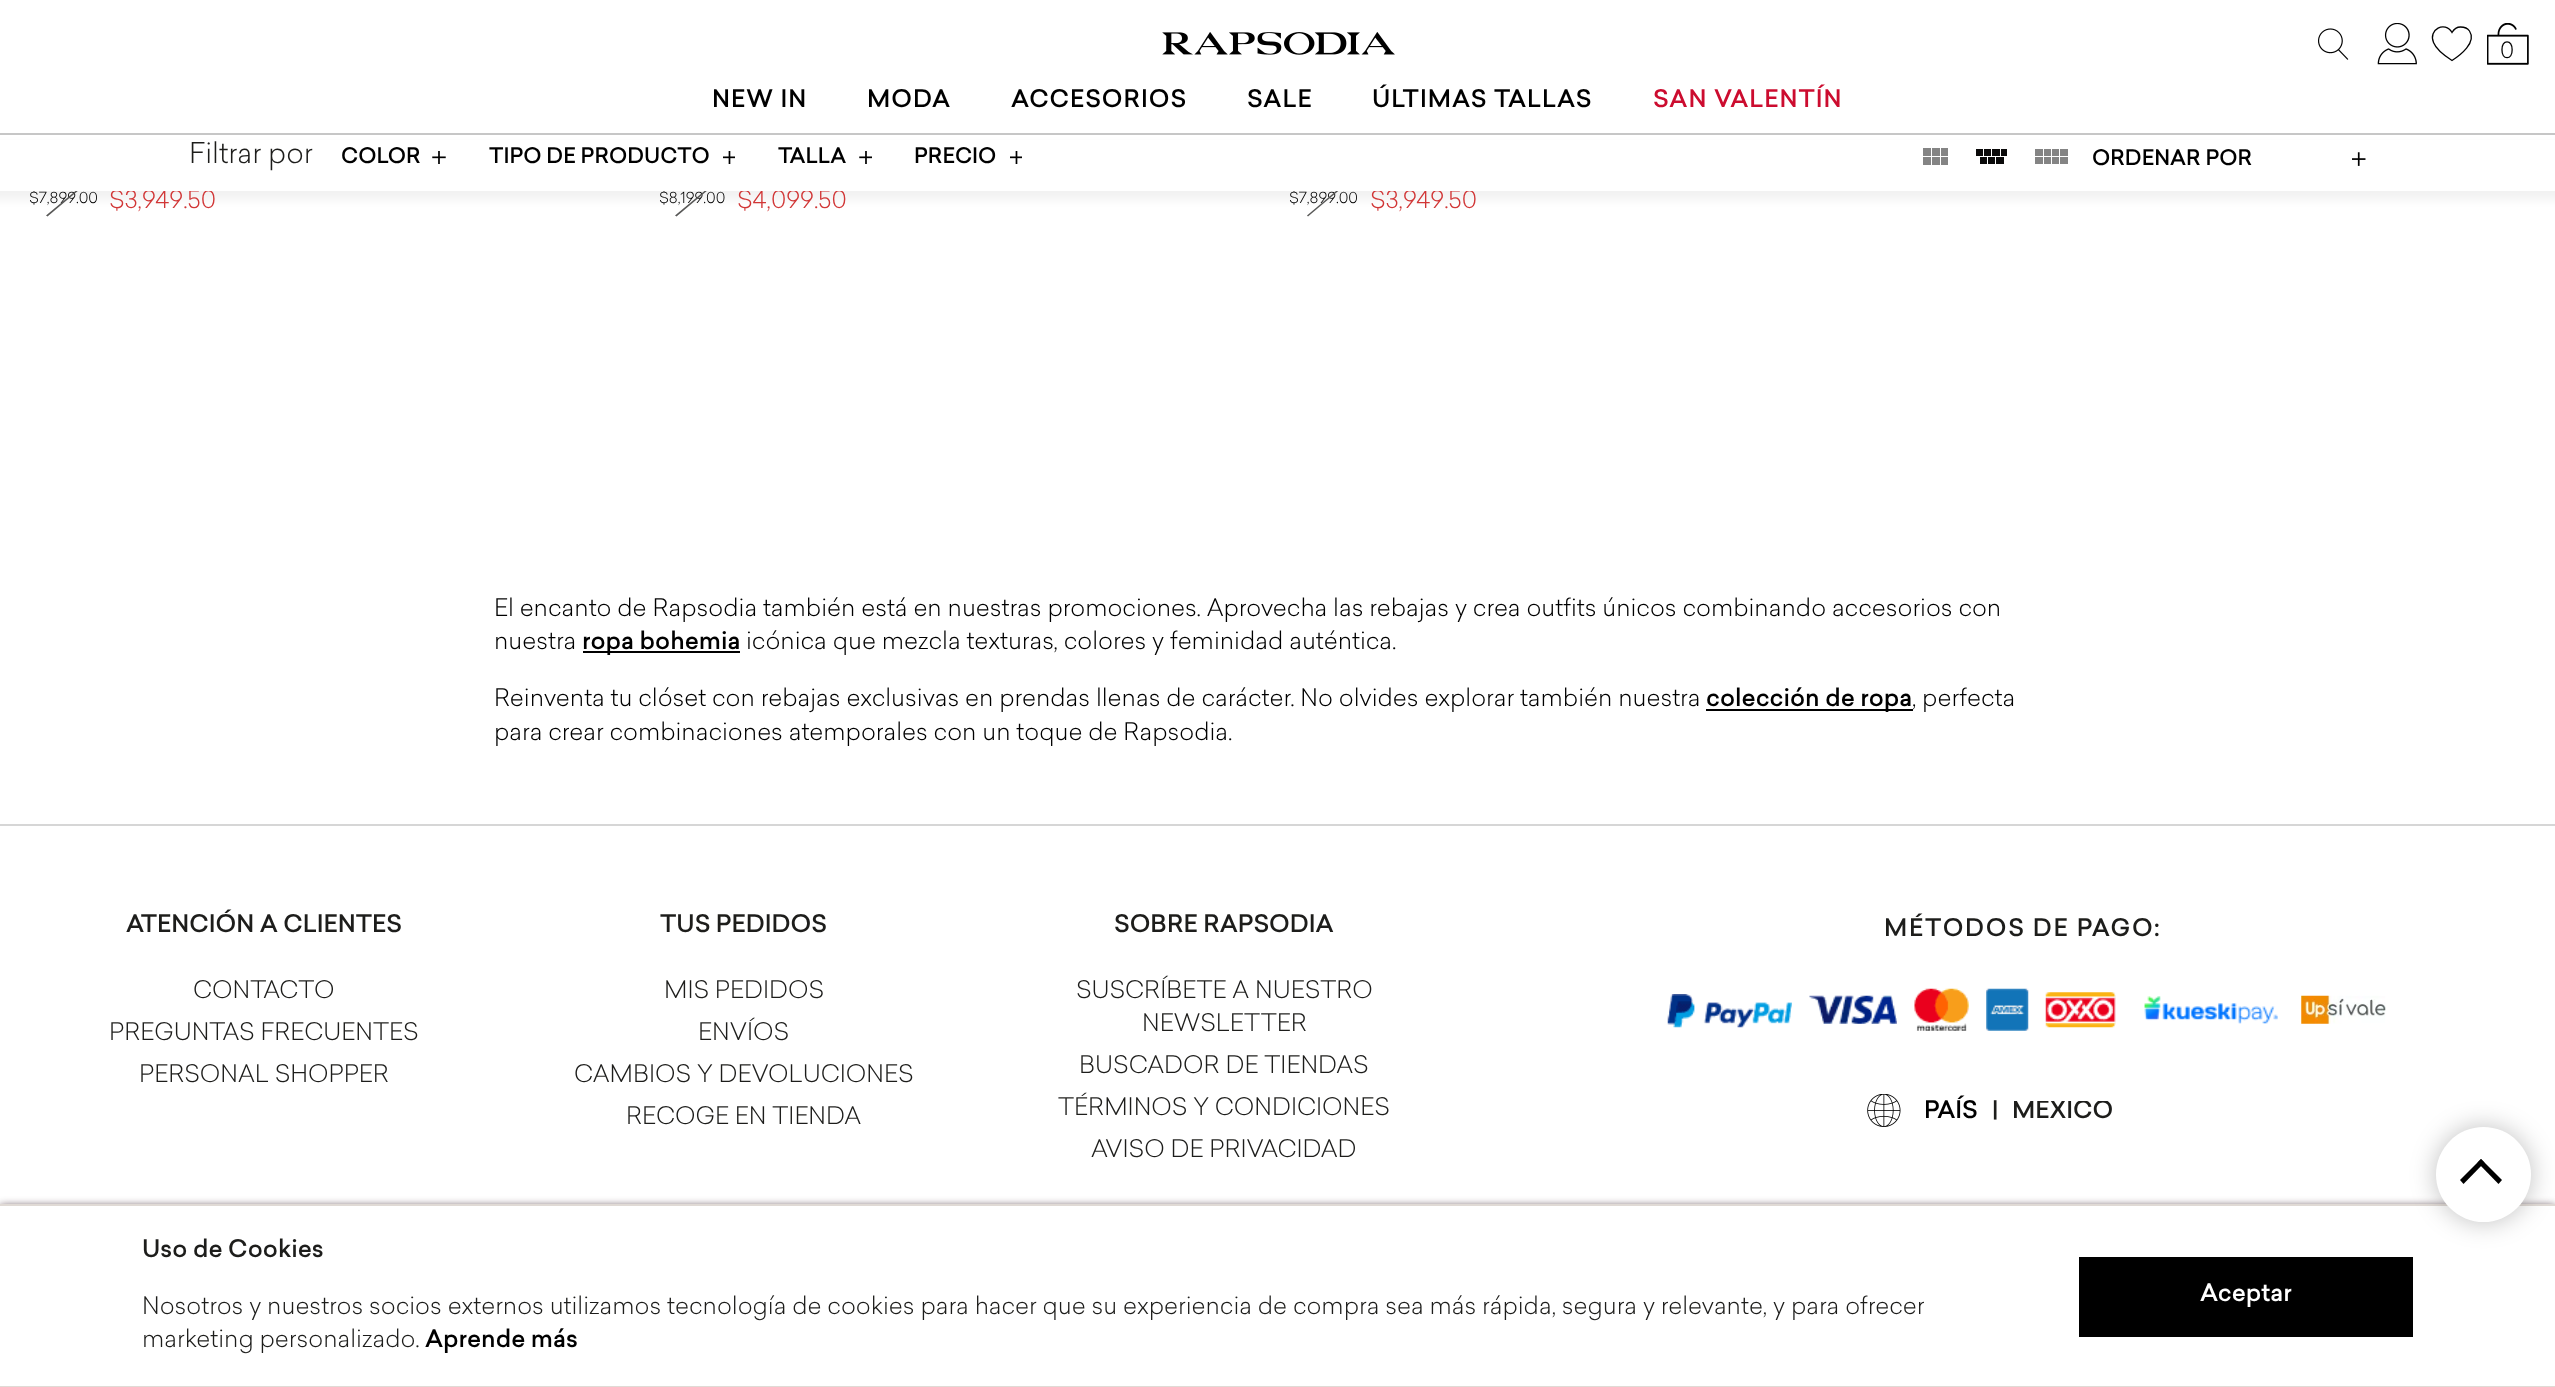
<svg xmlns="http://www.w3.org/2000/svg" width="2555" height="1387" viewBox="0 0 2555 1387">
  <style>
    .t1 { font: 300 22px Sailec; letter-spacing: 1px; fill: #000; }
    .t2 { font: 300 15px Sailec; fill: #000; }
    .t3 { font: 500 23.8px Sailec; letter-spacing: 1px; fill: #000; }
    .t4 { font: 500 23.8px Sailec; letter-spacing: 1px; fill: #cc0c2f; }
    .t5 { font: 300 23.8px Sailec; fill: #d13636; }
    .t6 { font: 300 28px Sailec; fill: #1d1d1b; }
    .t7 { font: 500 21px Sailec; fill: #000; }
    .t8 { font: 300 23.8px Sailec; fill: #000; }
    .t9 { font: 500 23.8px Sailec; fill: #000; }
    .t10 { font: 500 23.8px Sailec; fill: #1d1d1b; }
    .t11 { font: 300 23.8px Sailec; fill: #1d1d1b; }
    .t12 { font: 500 23.8px Sailec; letter-spacing: 1.7px; fill: #1d1d1b; }
    .t13 { font: 500 23.8px Sailec; fill: #fff; }
  </style>
  <defs>
    <clipPath id="clip1"><rect x="2011" y="1101" width="147" height="23"/></clipPath>
  </defs>
  <rect width="100%" height="100%" fill="#fff"/>
  <image x="1162" y="32" width="233" height="23" href="images/1.png"/>
  <image x="2318" y="28" width="31" height="32" href="images/2.png"/>
  <image x="2377" y="23" width="40" height="42" href="images/3.png"/>
  <path d="M2460.5 27C2457.5 27 2454 29 2452 32.5C2445 20.5 2428 29.5 2433.5 42.5C2436.5 50 2445 56 2452 60.5C2460 55.5 2477 42.5 2469.5 31C2467.5 28 2464 27 2460.5 27Z" fill="none" stroke="#000" stroke-width="1.3"/>
  <image x="2487" y="23" width="42" height="42" href="images/4.png"/>
  <text x="2500" y="58" class="t1">0</text>
  <text x="29" y="203" class="t2">$7,899.00</text>
  <path d="M46 215.5L78.5 188.5L79.5 189.5L47.5 216.5Z" fill="#585857"/>
  <text x="659" y="203" class="t2">$8,199.00</text>
  <path d="M675 215.5L707.5 188.5L708.5 189.5L676.5 216.5Z" fill="#585857"/>
  <text x="1289" y="203" class="t2">$7,899.00</text>
  <path d="M1307 215.5L1339 188.5L1340 189.5L1308 216.5Z" fill="#585857"/>
  <rect x="-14" y="144" width="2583" height="56" fill="#0000000d" filter="blur(4.5px)"/>
  <rect x="0" y="133" width="2555" height="2" fill="#c6c6c6"/>
  <text x="712" y="107" class="t3">NEW IN</text>
  <text x="867" y="107" class="t3">MODA</text>
  <text x="1011" y="107" class="t3">ACCESORIOS</text>
  <text x="1247" y="107" class="t3">SALE</text>
  <text x="1372" y="107" class="t3">ÚLTIMAS TALLAS</text>
  <text x="1653" y="107" class="t4">SAN VALENTÍN</text>
  <text x="109" y="208" class="t5">$3,949.50</text>
  <text x="737" y="208" class="t5">$4,099.50</text>
  <text x="1370" y="208" class="t5">$3,949.50</text>
  <rect x="0" y="140" width="2555" height="51" fill="#fff"/>
  <text x="189" y="163" class="t6">Filtrar por</text>
  <text x="341" y="163" class="t7">COLOR</text>
  <image x="432" y="151" width="14" height="13" href="images/5.png"/>
  <text x="489" y="163" class="t7">TIPO DE PRODUCTO</text>
  <image x="723" y="151" width="12" height="13" href="images/6.png"/>
  <text x="778" y="163" class="t7">TALLA</text>
  <image x="859" y="151" width="13" height="13" href="images/7.png"/>
  <text x="914" y="163" class="t7">PRECIO</text>
  <image x="1010" y="151" width="12" height="13" href="images/6.png"/>
  <image x="1923" y="148" width="25" height="17" href="images/8.png"/>
  <image x="1976" y="149" width="31" height="15" href="images/9.png"/>
  <image x="2035" y="149" width="33" height="15" href="images/10.png"/>
  <text x="2092" y="165" class="t7">ORDENAR POR</text>
  <image x="2352" y="152" width="14" height="14" href="images/11.png"/>
  <text x="494" y="616" class="t8">El encanto de Rapsodia también está en nuestras promociones. Aprovecha las rebajas y crea outfits únicos combinando accesorios con</text>
  <text x="494" y="649" class="t8">nuestra</text>
  <rect x="583" y="651" width="157" height="2" fill="#000"/>
  <text x="582" y="649" class="t9">ropa bohemia</text>
  <text x="746" y="649" class="t8">icónica que mezcla texturas, colores y feminidad auténtica.</text>
  <text x="494" y="706" class="t8">Reinventa tu clóset con rebajas exclusivas en prendas llenas de carácter. No olvides explorar también nuestra</text>
  <rect x="1706" y="709" width="207" height="2" fill="#000"/>
  <text x="1706" y="706" class="t9">colección de ropa</text>
  <text x="1912" y="706" class="t8">, perfecta</text>
  <text x="494" y="740" class="t8">para crear combinaciones atemporales con un toque de Rapsodia.</text>
  <rect x="0" y="824" width="2555" height="2" fill="#d6d6d6"/>
  <text x="126" y="932" class="t10">ATENCIÓN A CLIENTES</text>
  <text x="193" y="998" class="t11">CONTACTO</text>
  <text x="109" y="1040" class="t11">PREGUNTAS FRECUENTES</text>
  <text x="139" y="1082" class="t11">PERSONAL SHOPPER</text>
  <text x="660" y="932" class="t10">TUS PEDIDOS</text>
  <text x="664" y="998" class="t11">MIS PEDIDOS</text>
  <text x="698" y="1040" class="t11">ENVÍOS</text>
  <text x="574" y="1082" class="t11">CAMBIOS Y DEVOLUCIONES</text>
  <text x="626" y="1124" class="t11">RECOGE EN TIENDA</text>
  <text x="1114" y="932" class="t10">SOBRE RAPSODIA</text>
  <text x="1076" y="998" class="t11">SUSCRÍBETE A NUESTRO</text>
  <text x="1142" y="1031" class="t11">NEWSLETTER</text>
  <text x="1079" y="1073" class="t11">BUSCADOR DE TIENDAS</text>
  <text x="1058" y="1115" class="t11">TÉRMINOS Y CONDICIONES</text>
  <text x="1091" y="1157" class="t11">AVISO DE PRIVACIDAD</text>
  <text x="1884" y="936" class="t12">MÉTODOS DE PAGO:</text>
  <image x="1667" y="994" width="125" height="34" href="images/12.png"/>
  <image x="1809" y="995" width="88" height="29" href="images/13.png"/>
  <image x="1914" y="988" width="55" height="43" href="images/14.png"/>
  <image x="1986" y="988" width="43" height="43" href="images/15.png"/>
  <image x="2045" y="992" width="71" height="36" href="images/16.png"/>
  <image x="2144" y="996" width="134" height="28" href="images/17.png"/>
  <image x="2301" y="995" width="85" height="29" href="images/18.png"/>
  <image x="1867" y="1094" width="34" height="33" href="images/19.png"/>
  <text x="1924" y="1118" class="t9">PAÍS</text>
  <text x="1992" y="1118" class="t10">|</text>
  <g clip-path="url(#clip1)">
    <text x="2012" y="1118" class="t10">MÉXICO</text>
  </g>
  <rect x="0" y="1206" width="2555" height="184" fill="#4e3844" filter="blur(4.5px)"/>
  <rect x="1" y="1205" width="2553" height="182" fill="none" stroke="#e0dad5" stroke-width="2"/>
  <rect x="0" y="1206" width="2555" height="180" fill="#fff"/>
  <rect x="2079" y="1257" width="334" height="80" fill="#000"/>
  <rect x="2436" y="1127" width="95" height="95" rx="47.5" fill="#00000040" filter="blur(13px)"/>
  <circle cx="2483.5" cy="1174.5" r="47.5" fill="#fff"/>
  <path d="M2460 1180L2481 1159L2484.5 1162.5L2463.5 1184Z" fill="#000"/>
  <path d="M2477.5 1162.5L2481 1159L2502 1180L2498.5 1184Z" fill="#000"/>
  <text x="142" y="1257" class="t10">Uso de Cookies</text>
  <text x="142" y="1314" class="t11">Nosotros y nuestros socios externos utilizamos tecnología de cookies para hacer que su experiencia de compra sea más rápida, segura y relevante, y para ofrecer</text>
  <text x="142" y="1347" class="t11">marketing personalizado.</text>
  <text x="425" y="1347" class="t9">Aprende más</text>
  <text x="2200" y="1301" class="t13">Aceptar</text>
</svg>
